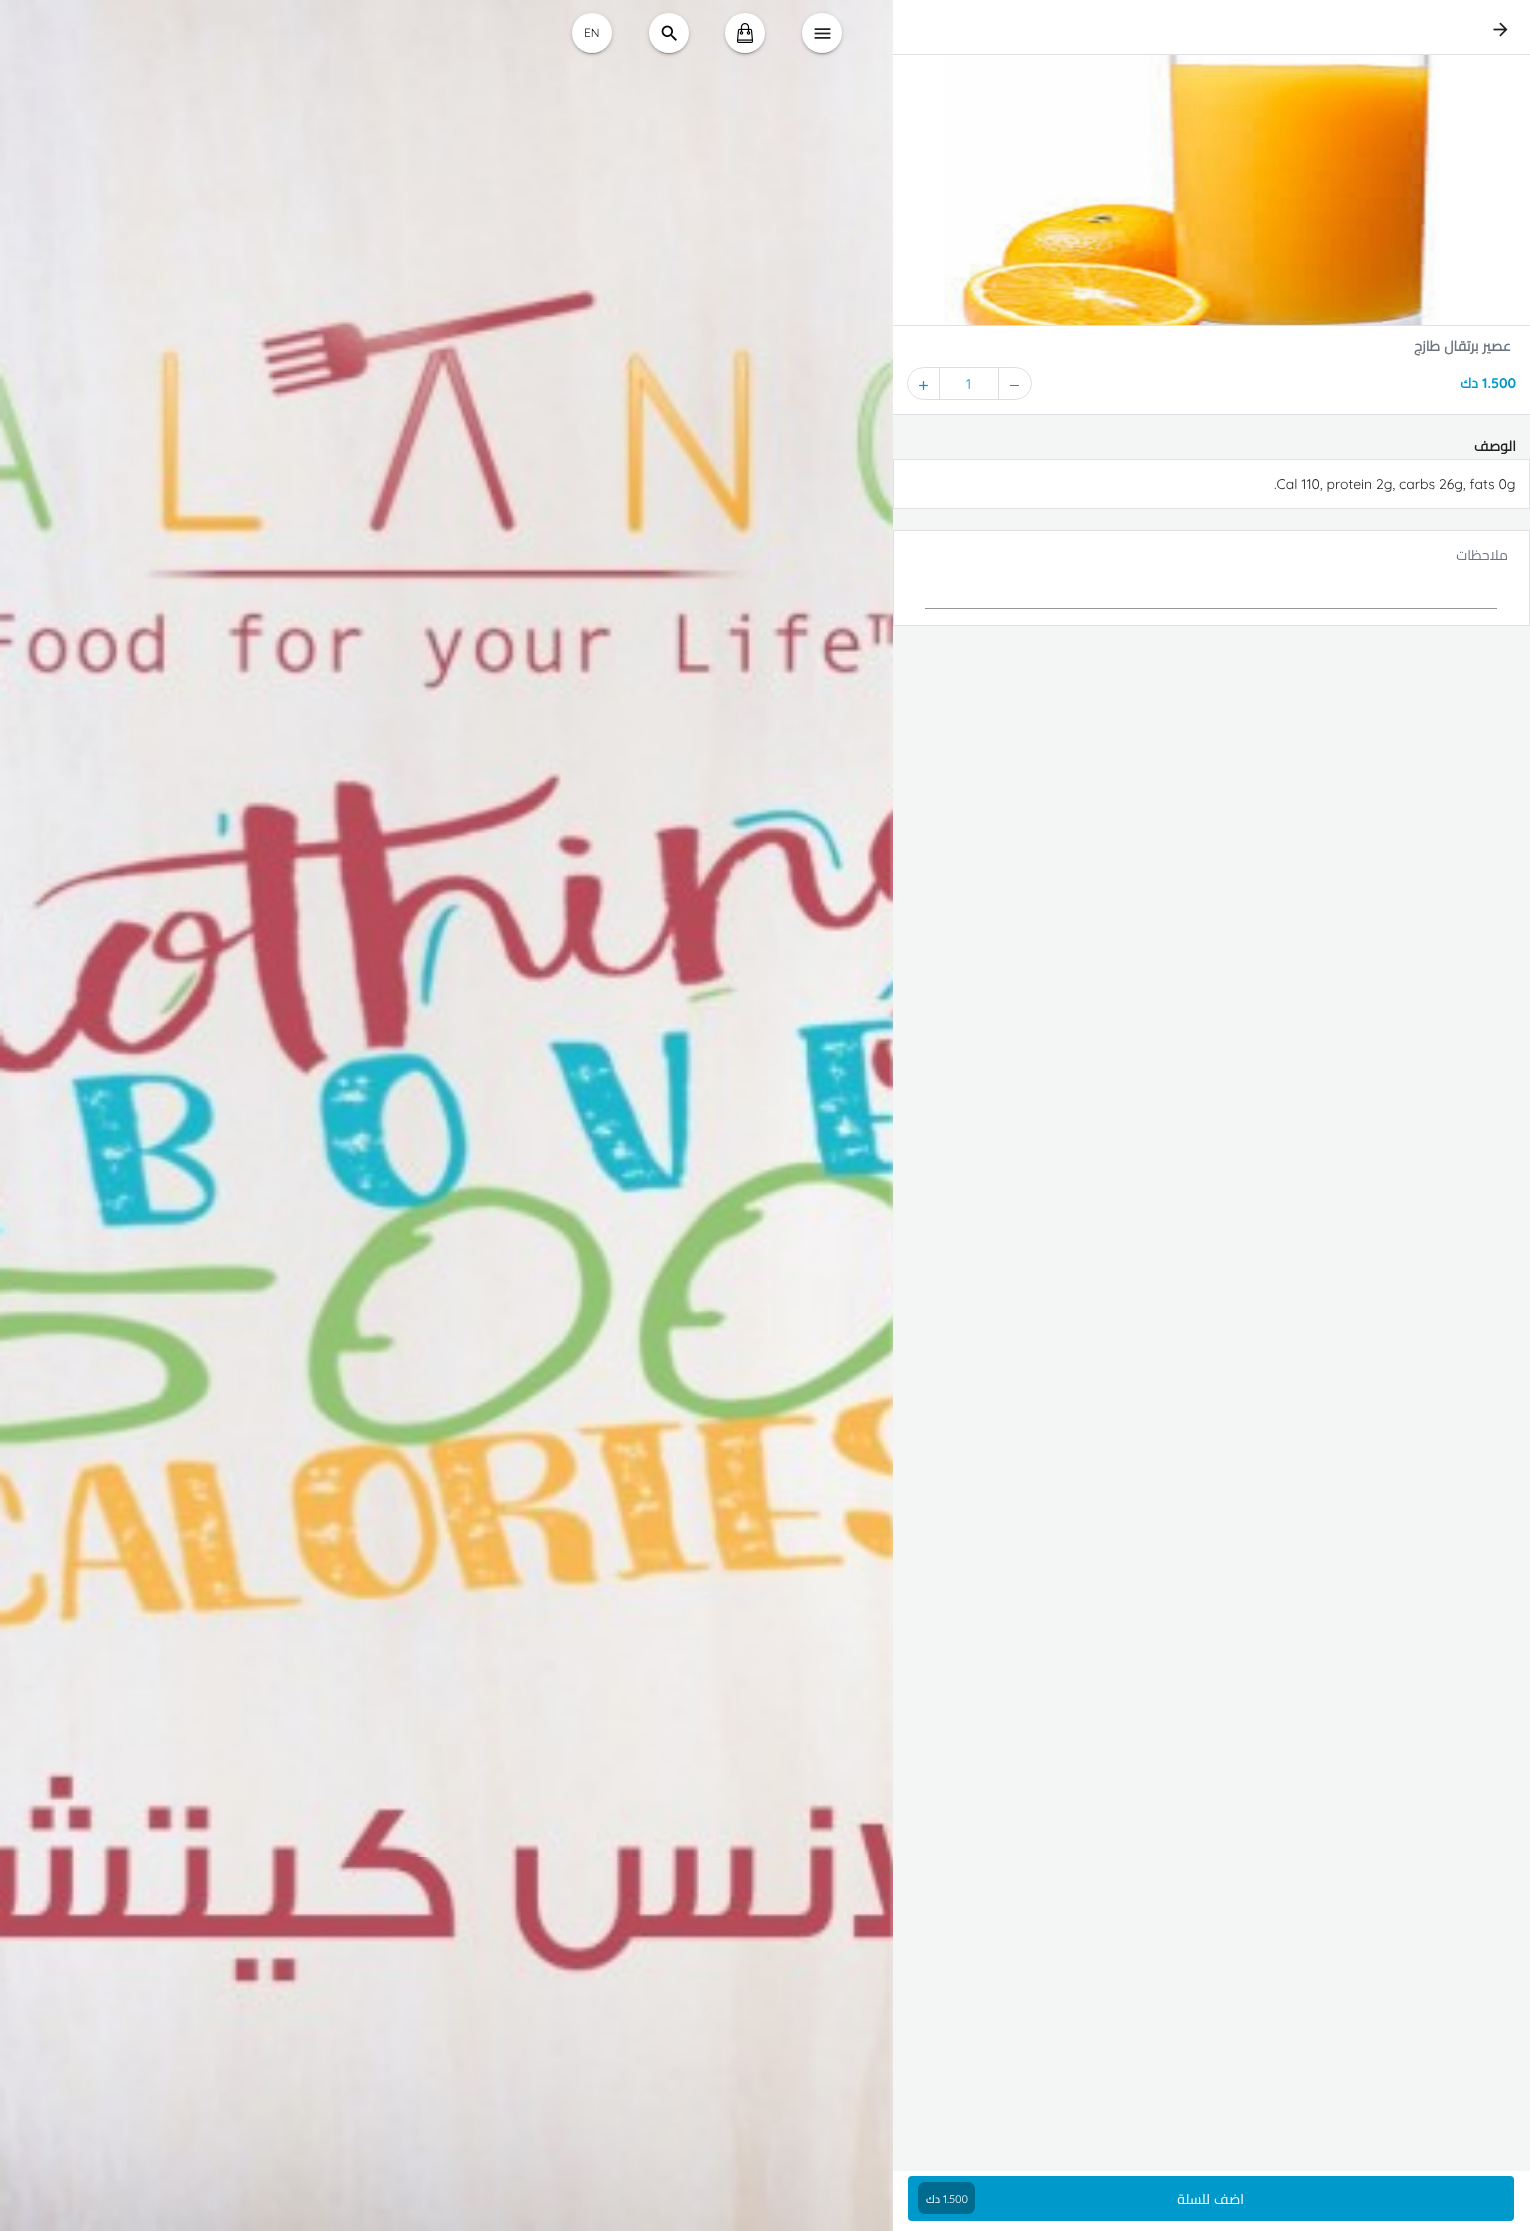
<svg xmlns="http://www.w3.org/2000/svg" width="1530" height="2231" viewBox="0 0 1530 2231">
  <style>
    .t1 { font: 300 12px 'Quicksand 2'; fill: #202020; }
    .t2 { font: bold 14px Cairo; direction: rtl; fill: #6c757d; }
    .t3 { font: 300 14px 'Quicksand 2'; fill: #09c; }
    .t4 { font: bold 14px Cairo; direction: rtl; fill: #09c; }
    .t5 { font: 300 14px Quicksand; fill: #09c; }
    .t6 { font: bold 14px Cairo; direction: rtl; fill: #202020; }
    .t7 { font: 300 14px 'Quicksand 2'; fill: #202020; }
    .t8 { font: 14px Cairo; direction: rtl; fill: #6c757d; }
    .t9 { font: 11px Cairo; direction: rtl; fill: #fff; }
    .t10 { font: 300 11px 'Quicksand 2'; fill: #fff; }
    .t11 { font: 14px Cairo; direction: rtl; fill: #fff; }
  </style>
  <rect width="100%" height="100%" fill="#f4f5f5"/>
  <rect x="892" y="2171" width="638" height="60" fill="#fff"/>
  <image x="0" y="0" width="893" height="2231" href="images/1.png"/>
  <rect x="572" y="14" width="40" height="40" rx="20" fill="#0000001f" filter="blur(2.5px)"/>
  <rect x="572" y="15" width="40" height="40" rx="20" fill="#00000024" filter="blur(1px)"/>
  <rect x="574" y="18" width="36" height="36" rx="18" fill="#00000033" filter="blur(0.5px)"/>
  <circle cx="592" cy="33" r="20" fill="#fff"/>
  <text x="584" y="37" class="t1">EN</text>
  <rect x="649" y="14" width="40" height="40" rx="20" fill="#0000001f" filter="blur(2.5px)"/>
  <rect x="649" y="15" width="40" height="40" rx="20" fill="#00000024" filter="blur(1px)"/>
  <rect x="651" y="18" width="36" height="36" rx="18" fill="#00000033" filter="blur(0.5px)"/>
  <circle cx="669" cy="33" r="20" fill="#fff"/>
  <image x="661" y="25" width="16" height="16" href="images/2.png"/>
  <rect x="725" y="14" width="40" height="40" rx="20" fill="#0000001f" filter="blur(2.5px)"/>
  <rect x="725" y="15" width="40" height="40" rx="20" fill="#00000024" filter="blur(1px)"/>
  <rect x="727" y="18" width="36" height="36" rx="18" fill="#00000033" filter="blur(0.5px)"/>
  <circle cx="745" cy="33" r="20" fill="#fff"/>
  <image x="736" y="23" width="18" height="20" href="images/3.png"/>
  <rect x="802" y="14" width="40" height="40" rx="20" fill="#0000001f" filter="blur(2.5px)"/>
  <rect x="802" y="15" width="40" height="40" rx="20" fill="#00000024" filter="blur(1px)"/>
  <rect x="804" y="18" width="36" height="36" rx="18" fill="#00000033" filter="blur(0.5px)"/>
  <circle cx="822" cy="33" r="20" fill="#fff"/>
  <image x="814" y="28" width="17" height="11" href="images/4.png"/>
  <rect x="893" y="0" width="637" height="54" fill="#fff"/>
  <rect x="893" y="54" width="637" height="1" fill="#dee2e6"/>
  <image x="1493" y="22" width="15" height="15" href="images/5.png"/>
  <rect x="893" y="55" width="637" height="270" fill="#fff"/>
  <image x="944" y="55" width="497" height="270" href="images/6.png"/>
  <rect x="893" y="326" width="637" height="88" fill="#fff"/>
  <rect x="893" y="325" width="637" height="1" fill="#dee2e6"/>
  <rect x="893" y="414" width="637" height="1" fill="#dee2e6"/>
  <text x="1511" y="351" word-spacing="1" class="t2">عصير برتقال طازج</text>
  <rect x="907.5" y="367.5" width="124" height="32" rx="16" fill="none" stroke="#dedede"/>
  <image x="919" y="381" width="9" height="9" href="images/7.png"/>
  <rect x="998" y="368" width="1" height="32" fill="#dedede"/>
  <rect x="939" y="368" width="1" height="32" fill="#dedede"/>
  <text x="966" y="389" class="t3">1</text>
  <rect x="1010" y="385" width="9" height="1" fill="#09c"/>
  <text x="1478" y="388" class="t4">دك</text>
  <text x="1482" y="388" class="t5">1.500</text>
  <text x="1516" y="451" class="t6">الوصف</text>
  <rect x="893.5" y="459.5" width="636" height="49" fill="#fff" stroke="#dee2e6"/>
  <text x="1274" y="489" class="t7">.Cal 110, protein 2g, carbs 26g, fats 0g</text>
  <rect x="893.5" y="530.5" width="636" height="95" fill="#fff" stroke="#dee2e6"/>
  <text x="1508" y="560" class="t8">ملاحظات</text>
  <rect x="925" y="608" width="572" height="1" fill="#949494"/>
  <rect x="908" y="2176" width="606" height="45" rx="4" fill="#09c"/>
  <rect x="918" y="2182" width="57" height="32" rx="7" fill="#006b8f"/>
  <text x="940" y="2203" class="t9">دك</text>
  <text x="943" y="2203" class="t10">1.500</text>
  <text x="1244" y="2204" word-spacing="1" class="t11">اضف للسلة</text>
</svg>
